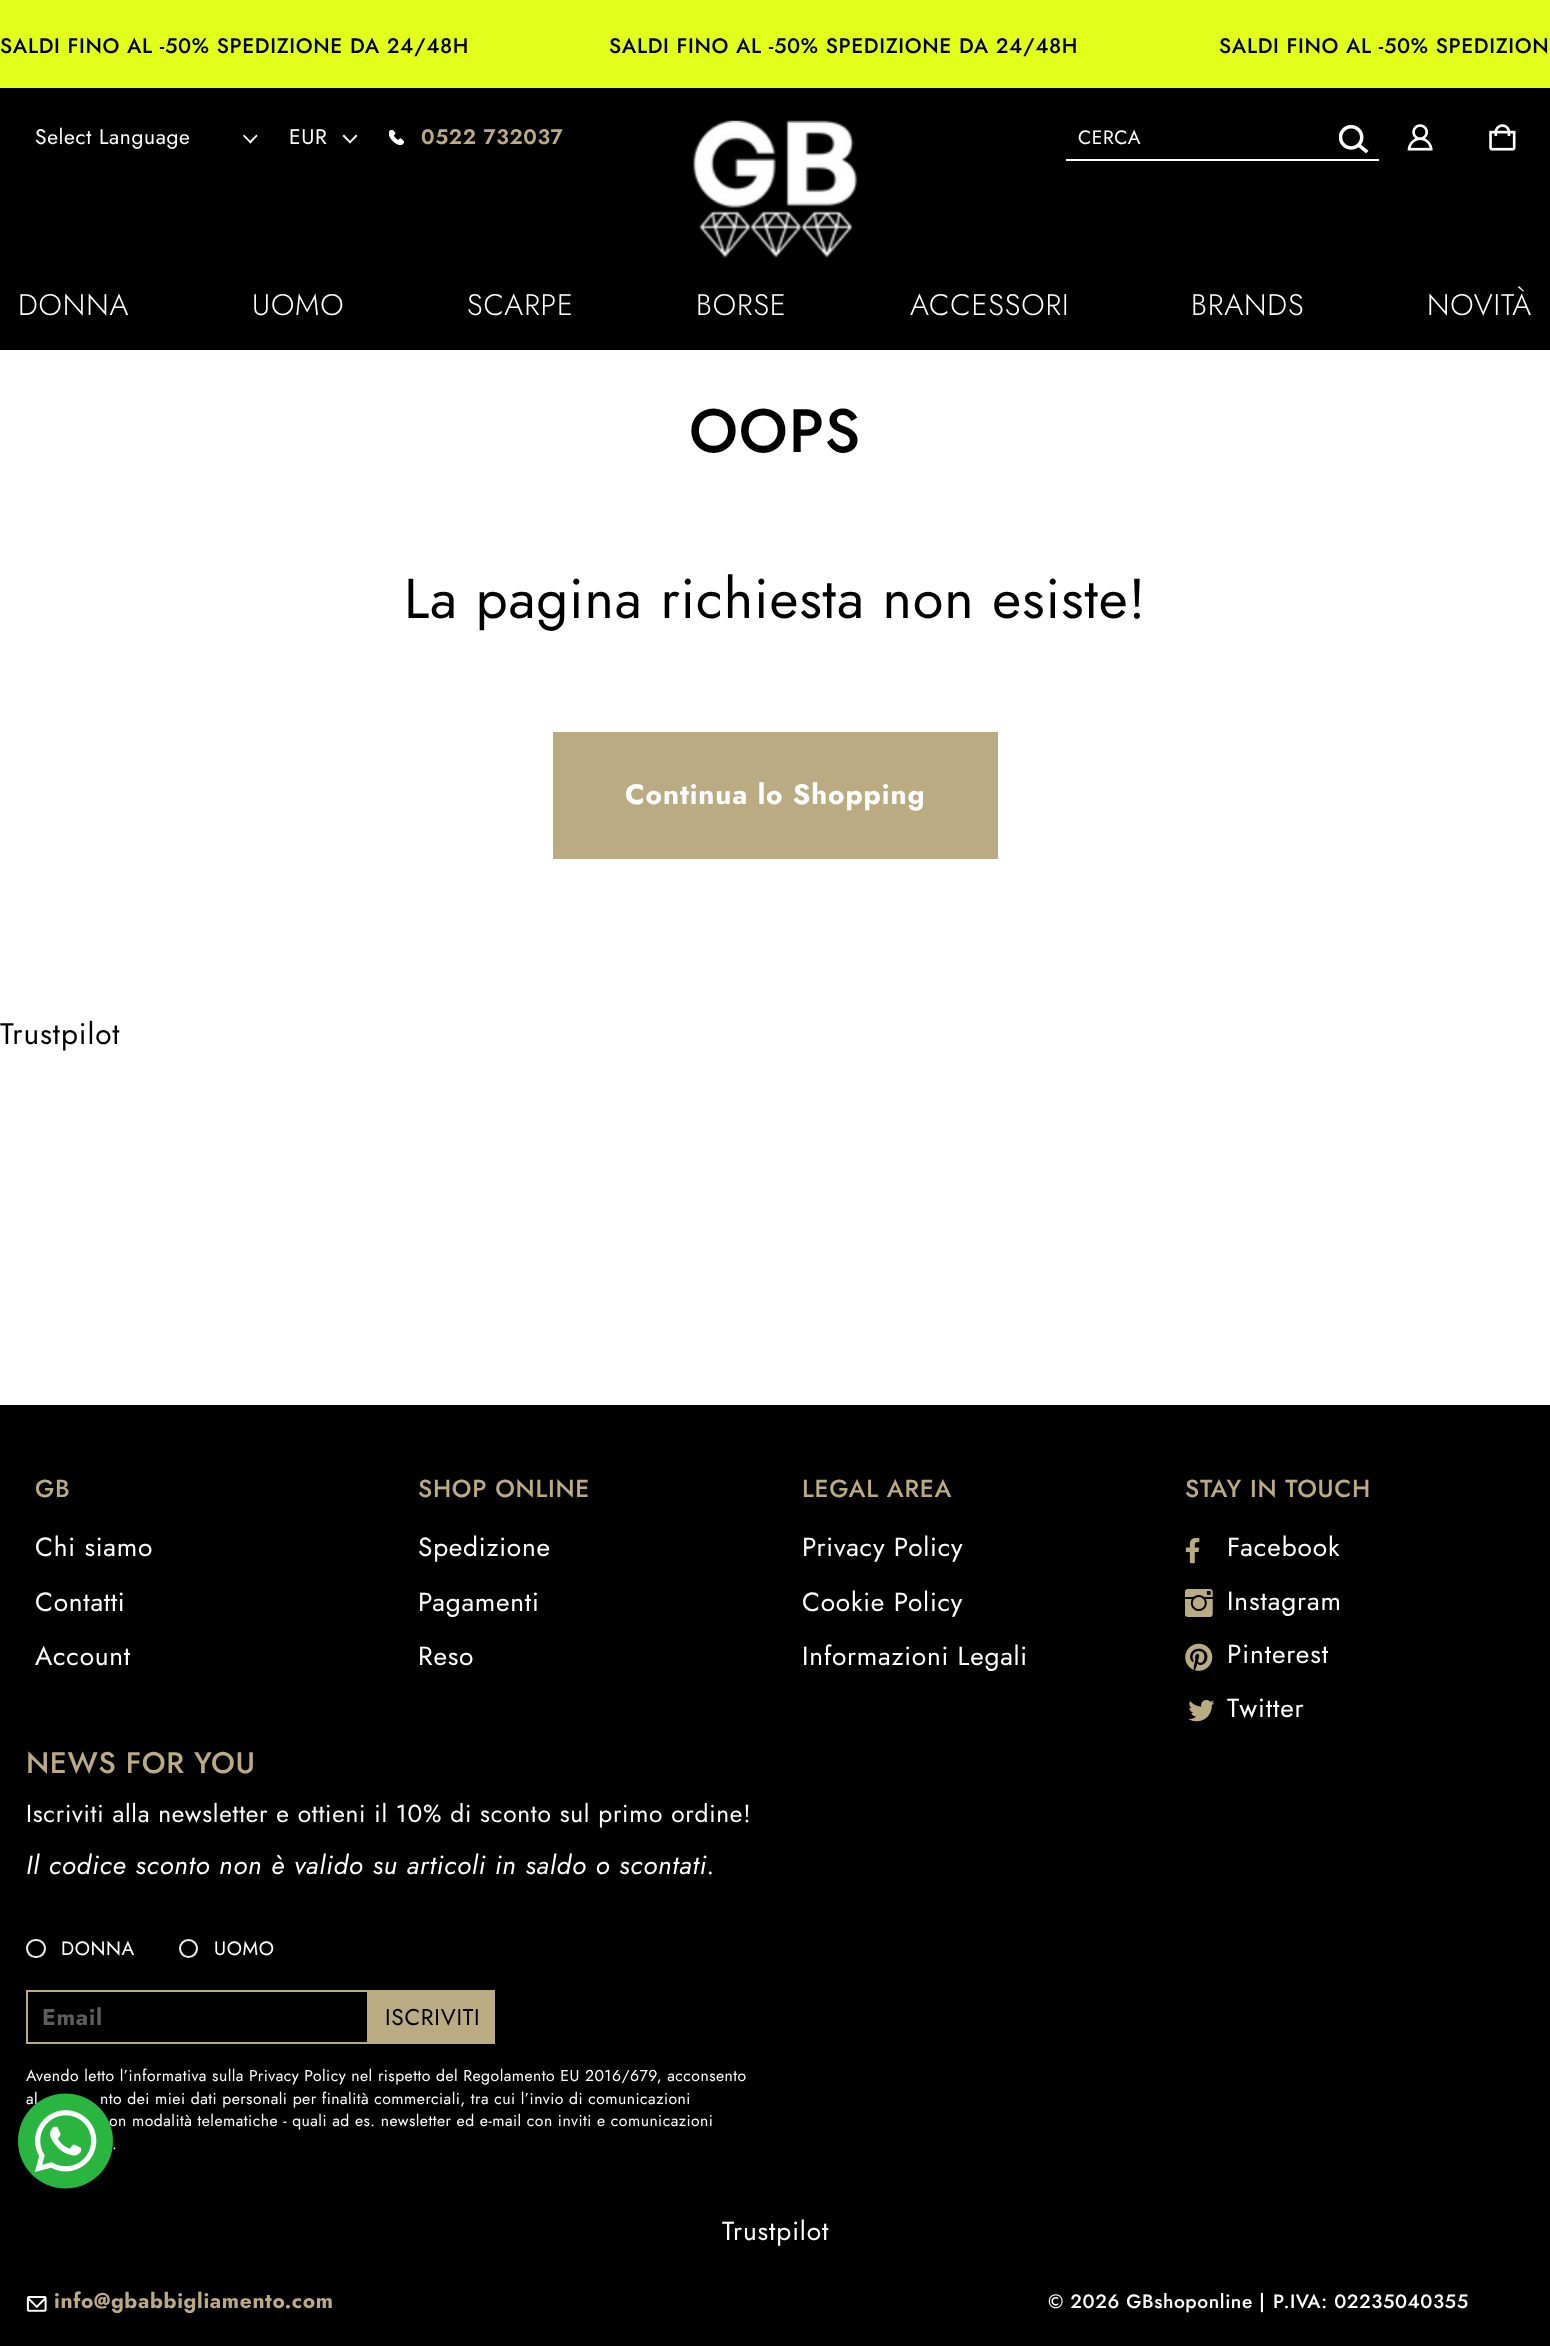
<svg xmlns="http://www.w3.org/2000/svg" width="1550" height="2346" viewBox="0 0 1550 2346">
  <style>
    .t1 { font: 500 21px Jost; letter-spacing: 0.65px; fill: #000; }
    .t2 { font: 21px Jost; letter-spacing: 0.65px; fill: #fff; }
    .t3 { font: 600 21px Jost; letter-spacing: 0.65px; fill: #bbab82; }
    .t4 { font: 19.25px Jost; letter-spacing: 0.6px; fill: #fff; }
    .t5 { font: 300 29.75px Jost; letter-spacing: 0.9px; fill: #fff; }
    .t6 { font: 500 61px Jost; letter-spacing: 0.9px; fill: #000; }
    .t7 { font: 56px Jost; letter-spacing: 0.9px; fill: #000; }
    .t8 { font: bold 28px Jost; letter-spacing: 0.9px; fill: #fff; }
    .t9 { font: 29.75px Jost; letter-spacing: 0.9px; fill: #000; }
    .t10 { font: 500 24.5px Jost; letter-spacing: 0.73px; fill: #bbab82; }
    .t11 { font: 26.25px Jost; letter-spacing: 0.75px; fill: #fff; }
    .t12 { font: 26.25px Jost; letter-spacing: 0.9px; fill: #fff; }
    .t13 { font: 500 29.75px Jost; letter-spacing: 0.6px; fill: #bbab82; }
    .t14 { font: 24.5px Jost; letter-spacing: 0.73px; fill: #fff; }
    .t15 { font: italic 26.25px Jost; letter-spacing: 0.9px; fill: #fff; }
    .t16 { font: bold 22.75px Jost; letter-spacing: 0.75px; fill: #5d5d5d; }
    .t17 { font: 22.75px Jost; letter-spacing: 0.75px; fill: #000; }
    .t18 { font: 15.75px Jost; letter-spacing: 0.47px; fill: #fff; }
    .t19 { font: bold 21px Jost; letter-spacing: 0.65px; fill: #bbab82; }
    .t20 { font: 500 19.25px Jost; letter-spacing: 0.6px; fill: #fff; }
  </style>
  <rect width="100%" height="100%" fill="#fff"/>
  <rect x="0" y="88" width="1550" height="262" fill="#000"/>
  <rect x="0" y="0" width="1550" height="88" fill="#e2ff1c"/>
  <text x="0" y="53" class="t1">SALDI FINO AL -50% SPEDIZIONE DA 24/48H</text>
  <text x="609" y="53" class="t1">SALDI FINO AL -50% SPEDIZIONE DA 24/48H</text>
  <text x="1219" y="53" class="t1">SALDI FINO AL -50% SPEDIZION</text>
  <text x="35" y="144" class="t2">Select Language</text>
  <path d="M249 142L256.5 134.5L257.5 136L250.5 143.5Z" fill="#fff"/>
  <path d="M243 136L244 134.5L251.5 142L250.5 143.5Z" fill="#fff"/>
  <text x="289" y="144" class="t2">EUR</text>
  <path d="M349 142L356 134.5L357.5 136L350 143.5Z" fill="#fff"/>
  <path d="M342.5 136L344 134.5L351 142L350 143.5Z" fill="#fff"/>
  <image x="389" y="130" width="15" height="15" href="images/1.png"/>
  <text x="421" y="144" class="t3">0522 732037</text>
  <image x="692" y="120" width="166" height="138" href="images/2.png"/>
  <rect x="1066" y="159" width="313" height="2" fill="#fff"/>
  <text x="1078" y="144" class="t4">CERCA</text>
  <image x="1339" y="124" width="30" height="30" href="images/3.png"/>
  <image x="1407" y="124" width="26" height="27" href="images/4.png"/>
  <image x="1489" y="124" width="27" height="27" href="images/5.png"/>
  <text x="18" y="315" class="t5">DONNA</text>
  <text x="252" y="315" class="t5">UOMO</text>
  <text x="467" y="315" class="t5">SCARPE</text>
  <text x="696" y="315" class="t5">BORSE</text>
  <text x="910" y="315" class="t5">ACCESSORI</text>
  <text x="1191" y="315" class="t5">BRANDS</text>
  <text x="1427" y="315" class="t5">NOVITÀ</text>
  <text x="689" y="452" class="t6">OOPS</text>
  <text x="404" y="618" class="t7">La pagina richiesta non esiste!</text>
  <rect x="553" y="732" width="445" height="127" fill="#bbab82"/>
  <text x="625" y="804" class="t8">Continua lo Shopping</text>
  <text x="0" y="1044" class="t9">Trustpilot</text>
  <rect x="0" y="1405" width="1550" height="941" fill="#000"/>
  <text x="35" y="1497" class="t10">GB</text>
  <text x="35" y="1556" class="t11">Chi siamo</text>
  <text x="35" y="1611" class="t11">Contatti</text>
  <text x="35" y="1665" class="t11">Account</text>
  <text x="418" y="1497" class="t10">SHOP ONLINE</text>
  <text x="418" y="1556" class="t11">Spedizione</text>
  <text x="418" y="1611" class="t11">Pagamenti</text>
  <text x="418" y="1665" class="t11">Reso</text>
  <text x="802" y="1497" class="t10">LEGAL AREA</text>
  <text x="802" y="1556" class="t11">Privacy Policy</text>
  <text x="802" y="1611" class="t11">Cookie Policy</text>
  <text x="802" y="1665" class="t11">Informazioni Legali</text>
  <text x="1185" y="1497" class="t10">STAY IN TOUCH</text>
  <image x="1185" y="1537" width="15" height="27" href="images/6.png"/>
  <text x="1227" y="1556" class="t12">Facebook</text>
  <image x="1185" y="1589" width="28" height="28" href="images/7.png"/>
  <text x="1227" y="1610" class="t12">Instagram</text>
  <image x="1185" y="1643" width="28" height="28" href="images/8.png"/>
  <text x="1227" y="1663" class="t12">Pinterest</text>
  <image x="1188" y="1700" width="27" height="22" href="images/9.png"/>
  <text x="1227" y="1717" class="t12">Twitter</text>
  <text x="26" y="1773" class="t13">NEWS FOR YOU</text>
  <text x="26" y="1822" class="t14">Iscriviti alla newsletter e ottieni il 10% di sconto sul primo ordine!</text>
  <text x="26" y="1874" class="t15">Il codice sconto non è valido su articoli in saldo o scontati.</text>
  <rect x="27" y="1940" width="18" height="17" rx="8.5" fill="none" stroke="#eee" stroke-width="2"/>
  <text x="61" y="1955" class="t4">DONNA</text>
  <circle cx="188.5" cy="1948.5" r="8.5" fill="none" stroke="#eee" stroke-width="2"/>
  <text x="214" y="1955" class="t4">UOMO</text>
  <rect x="27" y="1991" width="341" height="52" fill="none" stroke="#bbab82" stroke-width="2"/>
  <text x="42" y="2025" class="t16">Email</text>
  <rect x="369" y="1990" width="126" height="54" fill="#bbab82"/>
  <text x="385" y="2025" class="t17">ISCRIVITI</text>
  <text x="26" y="2081" class="t18">Avendo letto l’informativa sulla Privacy Policy nel rispetto del Regolamento EU 2016/679, acconsento</text>
  <text x="26" y="2104" class="t18">al</text>
  <text x="100" y="2104" class="t18">nto dei miei dati personali per finalità commerciali, tra cui l’invio di comunicazioni</text>
  <text x="109" y="2126" class="t18">on modalità telematiche - quali ad es. newsletter ed e-mail con inviti e comunicazioni</text>
  <text x="112" y="2149" class="t18">.</text>
  <text x="722" y="2240" class="t12">Trustpilot</text>
  <image x="26" y="2296" width="21" height="16" href="images/10.png"/>
  <text x="54" y="2308" class="t19">info@gbabbigliamento.com</text>
  <text x="1048" y="2308" class="t20">© 2026 GBshoponline</text>
  <text x="1259" y="2308" class="t20">|</text>
  <text x="1273" y="2308" class="t20">P.IVA: 02235040355</text>
  <image x="18" y="2093" width="95" height="96" href="images/11.png"/>
</svg>
